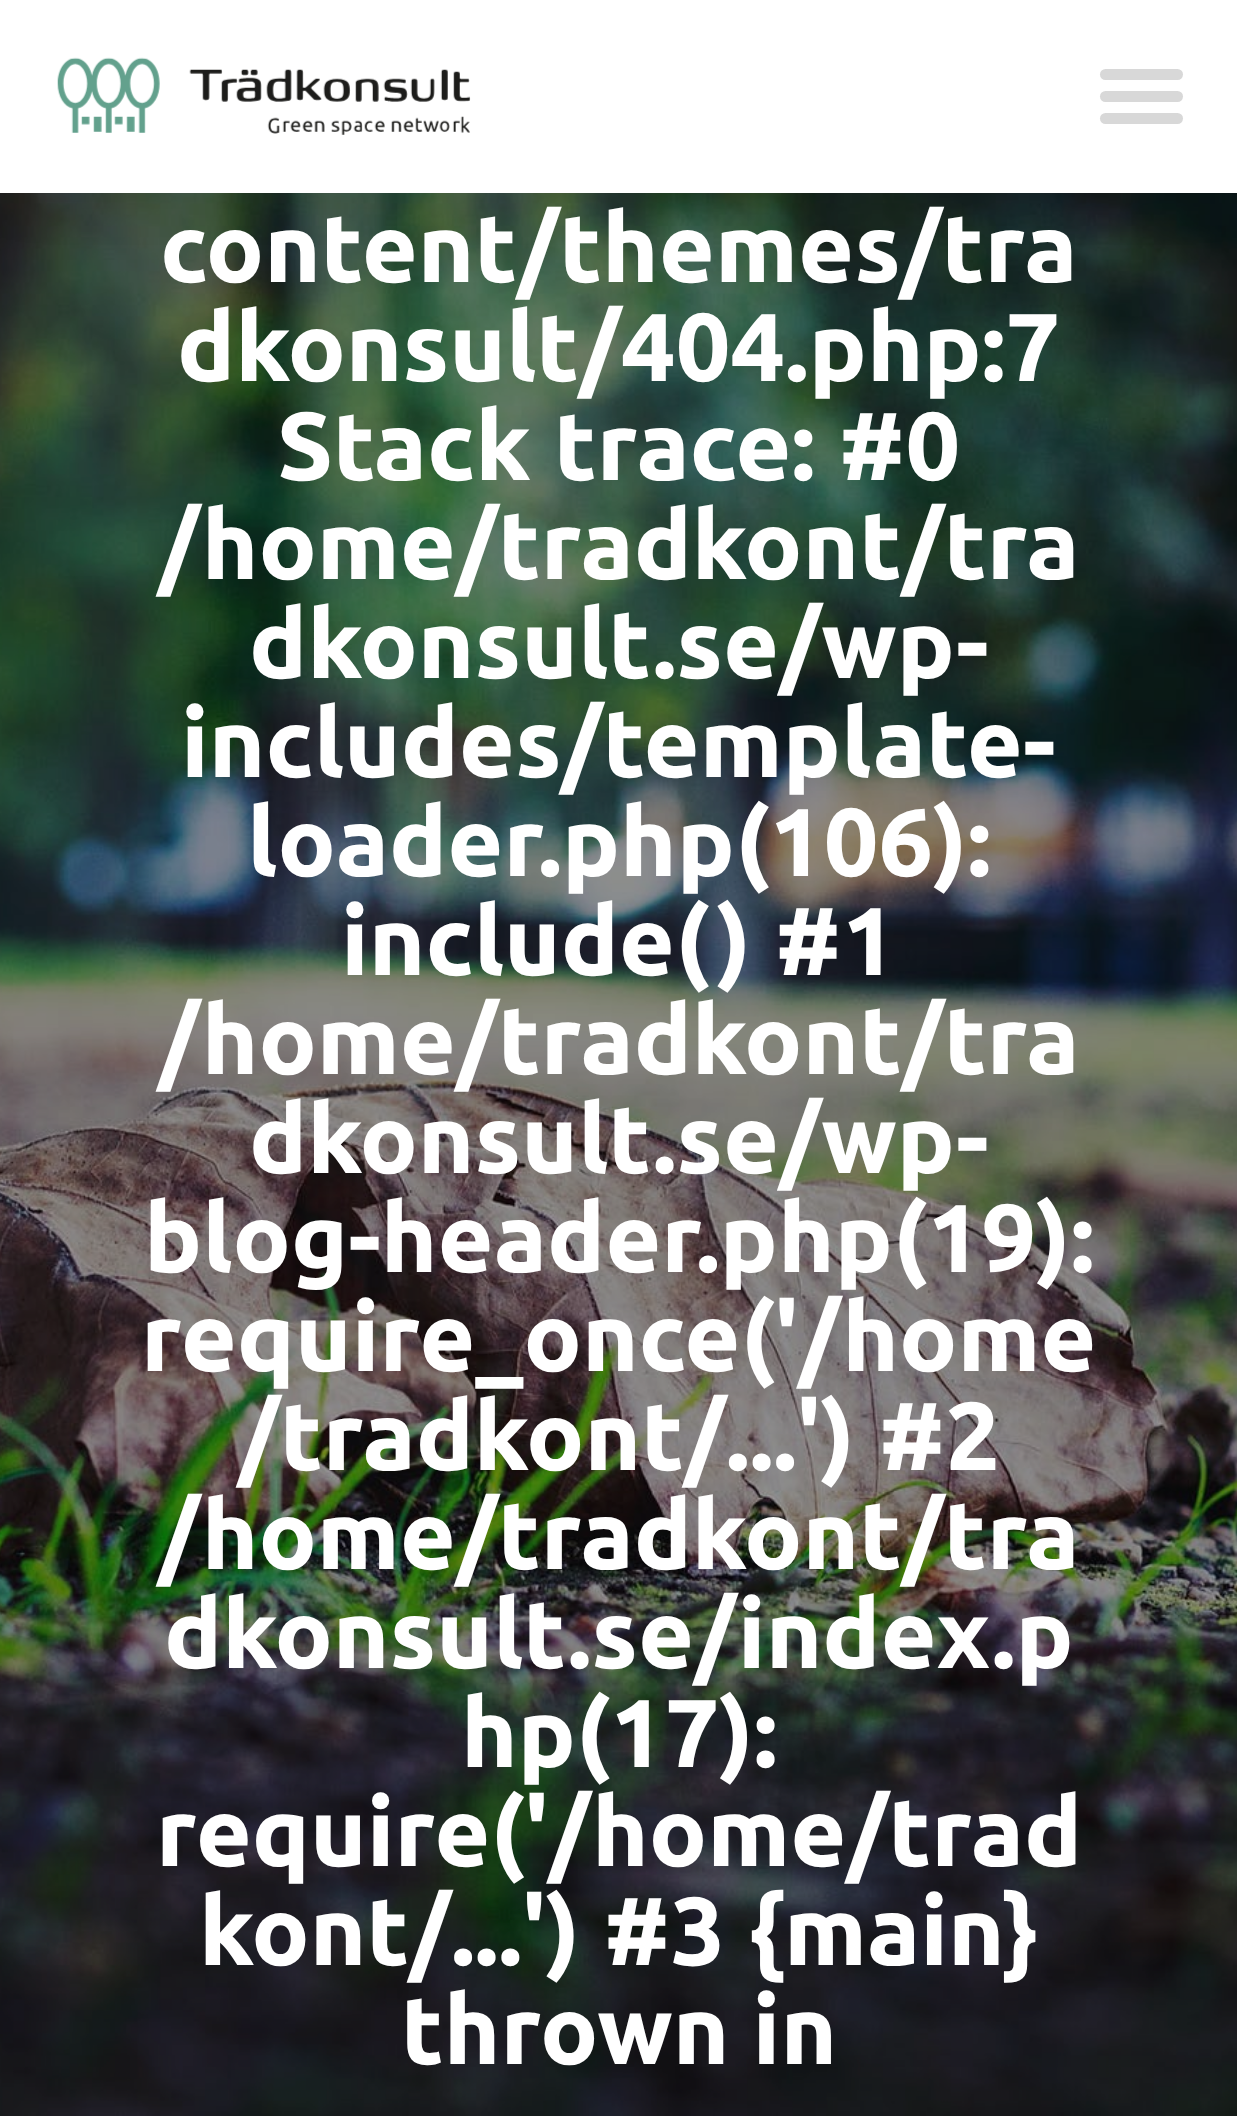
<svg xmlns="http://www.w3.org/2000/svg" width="1237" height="2116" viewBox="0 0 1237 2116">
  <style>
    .t1 { font: bold 96.25px Ubuntu; fill: #fff; }
  </style>
  <rect width="100%" height="100%" fill="#fff"/>
  <image x="0" y="193" width="1237" height="1923" href="images/2.png"/>
  <rect x="-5" y="-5" width="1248" height="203" fill="#0000000a" filter="blur(30px)"/>
  <rect x="0" y="0" width="1237" height="193" fill="#fff"/>
  <image x="57" y="57" width="414" height="78" href="images/1.png"/>
  <rect x="1100" y="69" width="83" height="11" rx="5.5" fill="#d8d8d8"/>
  <rect x="1100" y="91" width="83" height="11" rx="5.5" fill="#d8d8d8"/>
  <rect x="1100" y="113" width="83" height="11" rx="5.5" fill="#d8d8d8"/>
  <text x="160" y="282" class="t1">content/themes/tra</text>
  <text x="177" y="381" class="t1">dkonsult/404.php:7</text>
  <text x="277" y="480" class="t1">Stack trace: #0</text>
  <text x="158" y="579" class="t1">/home/tradkont/tra</text>
  <text x="249" y="678" class="t1">dkonsult.se/wp-</text>
  <text x="181" y="777" class="t1">includes/template-</text>
  <text x="247" y="876" class="t1">loader.php(106):</text>
  <text x="341" y="975" class="t1">include() #1</text>
  <text x="158" y="1074" class="t1">/home/tradkont/tra</text>
  <text x="249" y="1173" class="t1">dkonsult.se/wp-</text>
  <text x="144" y="1272" class="t1">blog-header.php(19):</text>
  <text x="141" y="1371" class="t1">require_once('/home</text>
  <text x="238" y="1470" class="t1">/tradkont/...') #2</text>
  <text x="158" y="1569" class="t1">/home/tradkont/tra</text>
  <text x="164" y="1668" class="t1">dkonsult.se/index.p</text>
  <text x="461" y="1767" class="t1">hp(17):</text>
  <text x="156" y="1866" class="t1">require('/home/trad</text>
  <text x="199" y="1965" class="t1">kont/...') #3 {main}</text>
  <text x="401" y="2064" class="t1">thrown in</text>
</svg>
